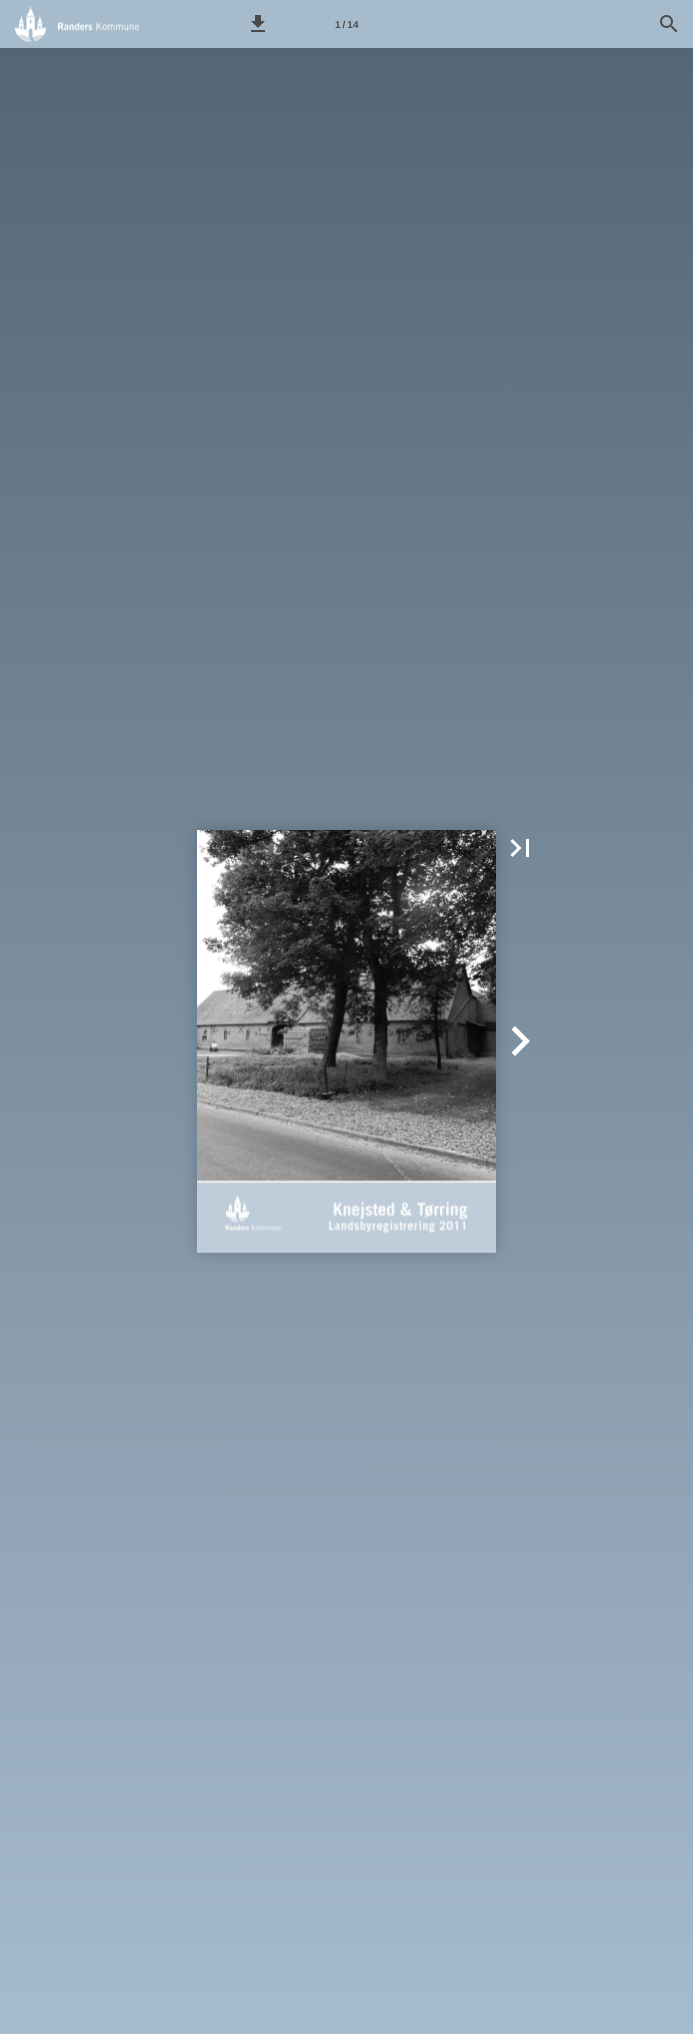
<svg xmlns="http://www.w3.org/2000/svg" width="693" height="2034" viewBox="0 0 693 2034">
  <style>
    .t1 { font: bold 10px Liberation Sans; fill: #4a4a4a; }
  </style>
  <defs>
    <linearGradient id="g1" gradientUnits="userSpaceOnUse" x1="346" y1="48" x2="347" y2="2034"><stop offset="0" stop-color="#536675"/><stop offset="1" stop-color="#a6bbcc"/></linearGradient>
  </defs>
  <rect width="100%" height="100%" fill="#fff"/>
  <rect x="0" y="0" width="693" height="48" fill="#a6bccc"/>
  <image x="15" y="6" width="124" height="36" href="images/1.png"/>
  <image x="251" y="15" width="14" height="17" href="images/2.png"/>
  <text x="335" y="28" class="t1">1 / 14</text>
  <image x="660" y="15" width="18" height="18" href="images/3.png"/>
  <rect x="0" y="48" width="693" height="1986" fill="url(#g1)"/>
  <rect x="197" y="830" width="299" height="423" fill="#00000033" filter="blur(8px)"/>
  <image x="197" y="830" width="299" height="423" href="images/4.png"/>
  <image x="510" y="839" width="19" height="18" href="images/5.png"/>
  <path d="M515 1026L511.5 1029.5L523 1041L511.5 1052.5L515 1056L530 1041Z" fill="#fff"/>
</svg>
